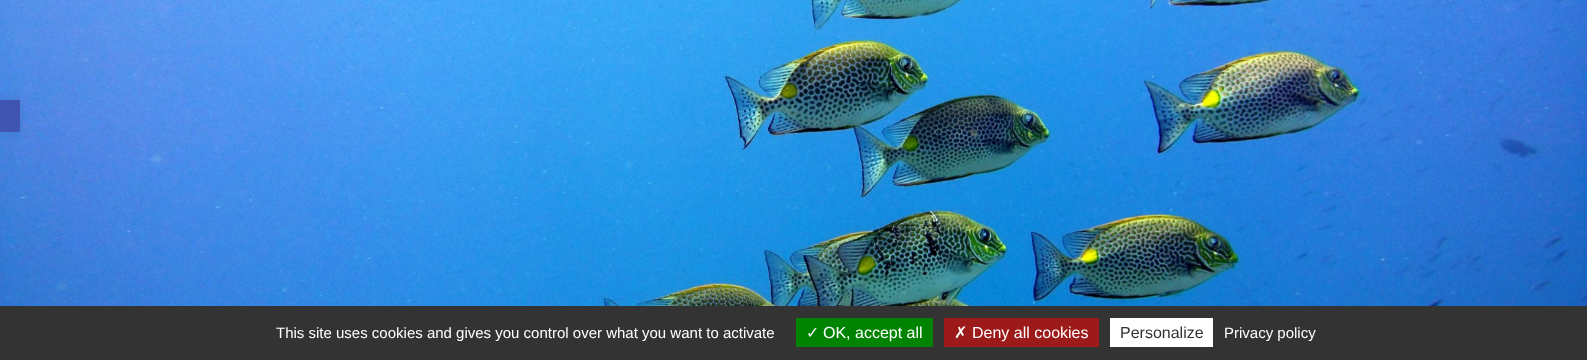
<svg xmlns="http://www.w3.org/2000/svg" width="1587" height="360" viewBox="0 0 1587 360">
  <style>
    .t1 { font: 15px Liberation Sans; fill: #fff; }
    .t2 { font: 16px DejaVu Sans; fill: #fff; }
    .t3 { font: 16px Liberation Sans; fill: #fff; }
    .t4 { font: 16px Liberation Sans; fill: #333; }
  </style>
  <rect width="100%" height="100%" fill="#fff"/>
  <image x="0" y="0" width="1587" height="306" href="images/1.png"/>
  <rect x="0" y="100" width="20" height="32" fill="#0000001a" filter="blur(5px)"/>
  <rect x="0" y="100" width="20" height="32" fill="#4054b2"/>
  <rect x="0" y="306" width="1587" height="54" fill="#333"/>
  <text x="276" y="338" class="t1">This site uses cookies and gives you control over what you want to activate</text>
  <rect x="796" y="318" width="137" height="29" fill="#008300"/>
  <text x="806" y="338" class="t2">✓</text>
  <text x="823" y="338" class="t3">OK, accept all</text>
  <rect x="944" y="318" width="155" height="29" fill="#9c1a1a"/>
  <text x="954" y="338" class="t2">✗</text>
  <text x="972" y="338" class="t3">Deny all cookies</text>
  <rect x="1110" y="318" width="103" height="29" fill="#fff"/>
  <text x="1120" y="338" class="t4">Personalize</text>
  <text x="1224" y="338" class="t1">Privacy policy</text>
</svg>
